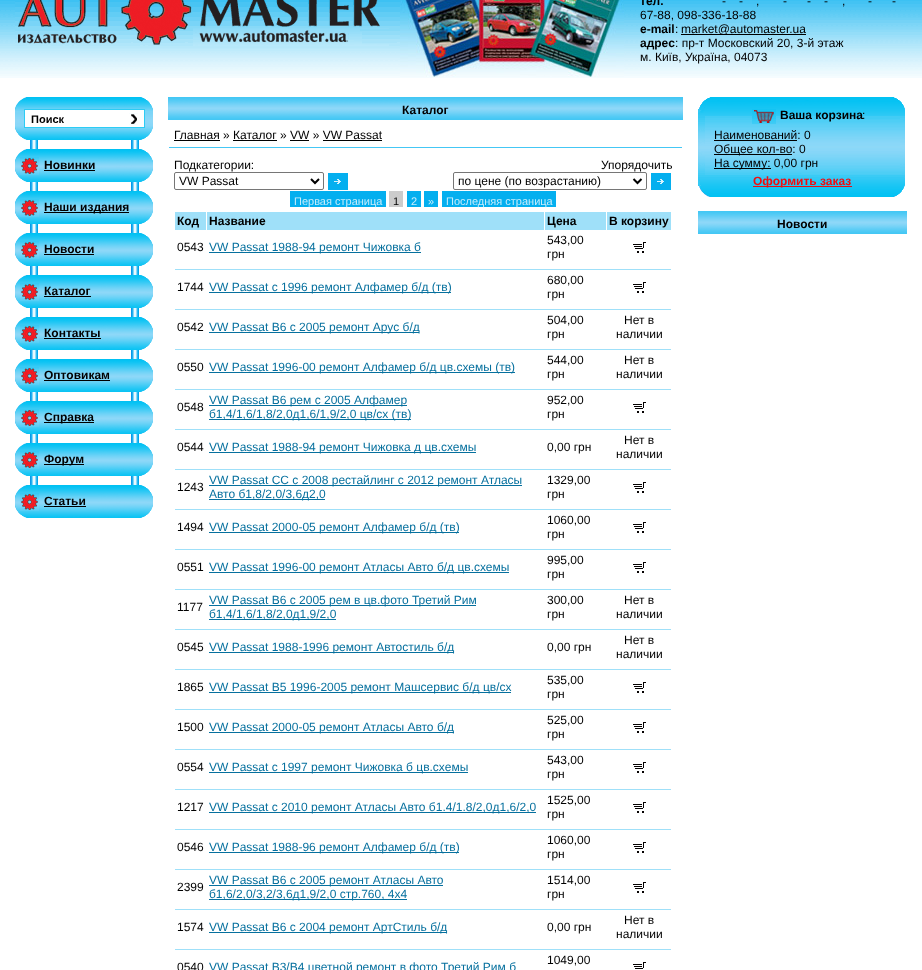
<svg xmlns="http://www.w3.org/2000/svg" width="922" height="970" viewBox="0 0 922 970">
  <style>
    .t1 { font: bold 12px Liberation Sans; fill: #000; }
    .t2 { font: 12px Liberation Sans; fill: #000; }
    .t3 { font: bold 11px Liberation Sans; fill: #000; }
    .t4 { font: 11px Liberation Sans; fill: #c5ecfc; }
    .t5 { font: 11px Liberation Sans; fill: #000; }
    .t6 { font: 12px Liberation Sans; fill: #06709e; }
    .t7 { font: bold 12px Liberation Sans; fill: #f10d10; }
  </style>
  <rect width="100%" height="100%" fill="#fff"/>
  <image x="0" y="0" width="922" height="78" href="images/1.png"/>
  <image x="15" y="0" width="385" height="46" href="images/2.png"/>
  <image x="400" y="0" width="224" height="77" href="images/3.png"/>
  <text x="640" y="5" class="t1">тел.</text>
  <text x="722" y="5" class="t2">-</text>
  <text x="739" y="5" class="t2">-</text>
  <text x="783" y="5" class="t2">-</text>
  <text x="807" y="5" class="t2">-</text>
  <text x="824" y="5" class="t2">-</text>
  <text x="868" y="5" class="t2">-</text>
  <text x="892" y="5" class="t2">-</text>
  <text x="756" y="5" class="t2">,</text>
  <text x="842" y="5" class="t2">,</text>
  <text x="640" y="19" class="t2">67-88, 098-336-18-88</text>
  <text x="640" y="33" class="t1">e-mail</text>
  <text x="675" y="33" class="t2">:</text>
  <rect x="681" y="34" width="125" height="1" fill="#000"/>
  <text x="681" y="33" class="t2">market@automaster.ua</text>
  <text x="640" y="47" class="t1">адрес</text>
  <text x="675" y="47" class="t2">: пр-т Московский 20, 3-й этаж</text>
  <text x="640" y="61" class="t2">м. Київ, Україна, 04073</text>
  <image x="15" y="97" width="138" height="43" href="images/4.png"/>
  <rect x="24.5" y="109.5" width="120" height="18" fill="#fff" stroke="#2cccf5"/>
  <text x="31" y="123" class="t3">Поиск</text>
  <image x="129" y="113" width="9" height="12" href="images/5.png"/>
  <image x="30" y="140" width="109" height="9" href="images/6.png"/>
  <image x="15" y="149" width="138" height="33" href="images/7.png"/>
  <image x="20" y="157" width="19" height="18" href="images/8.png"/>
  <text x="44" y="169" class="t1">Новинки</text>
  <rect x="44" y="170" width="51" height="1" fill="#000"/>
  <image x="30" y="182" width="109" height="9" href="images/6.png"/>
  <image x="15" y="191" width="138" height="33" href="images/7.png"/>
  <image x="20" y="199" width="19" height="18" href="images/8.png"/>
  <rect x="44" y="212" width="85" height="1" fill="#000"/>
  <text x="44" y="211" class="t1">Наши издания</text>
  <image x="30" y="224" width="109" height="9" href="images/6.png"/>
  <image x="15" y="233" width="138" height="33" href="images/7.png"/>
  <image x="20" y="241" width="19" height="18" href="images/8.png"/>
  <text x="44" y="253" class="t1">Новости</text>
  <rect x="44" y="254" width="50" height="1" fill="#000"/>
  <image x="30" y="266" width="109" height="9" href="images/6.png"/>
  <image x="15" y="275" width="138" height="33" href="images/7.png"/>
  <image x="20" y="283" width="19" height="18" href="images/8.png"/>
  <text x="44" y="295" class="t1">Каталог</text>
  <rect x="44" y="296" width="47" height="1" fill="#000"/>
  <image x="30" y="308" width="109" height="9" href="images/6.png"/>
  <image x="15" y="317" width="138" height="33" href="images/7.png"/>
  <image x="20" y="325" width="19" height="18" href="images/8.png"/>
  <text x="44" y="337" class="t1">Контакты</text>
  <rect x="44" y="338" width="57" height="1" fill="#000"/>
  <image x="30" y="350" width="109" height="9" href="images/6.png"/>
  <image x="15" y="359" width="138" height="33" href="images/7.png"/>
  <image x="20" y="367" width="19" height="18" href="images/8.png"/>
  <text x="44" y="379" class="t1">Оптовикам</text>
  <rect x="44" y="380" width="66" height="1" fill="#000"/>
  <image x="30" y="392" width="109" height="9" href="images/6.png"/>
  <image x="15" y="401" width="138" height="33" href="images/7.png"/>
  <image x="20" y="409" width="19" height="18" href="images/8.png"/>
  <rect x="44" y="422" width="50" height="1" fill="#000"/>
  <text x="44" y="421" class="t1">Справка</text>
  <image x="30" y="434" width="109" height="9" href="images/6.png"/>
  <image x="15" y="443" width="138" height="33" href="images/7.png"/>
  <image x="20" y="451" width="19" height="18" href="images/8.png"/>
  <rect x="44" y="464" width="40" height="1" fill="#000"/>
  <text x="44" y="463" class="t1">Форум</text>
  <image x="30" y="476" width="109" height="9" href="images/6.png"/>
  <image x="15" y="485" width="138" height="33" href="images/7.png"/>
  <image x="20" y="493" width="19" height="18" href="images/8.png"/>
  <text x="44" y="505" class="t1">Статьи</text>
  <rect x="44" y="506" width="42" height="1" fill="#000"/>
  <image x="168" y="97" width="515" height="23" href="images/9.png"/>
  <text x="402" y="114" class="t1">Каталог</text>
  <rect x="169" y="147" width="513" height="1" fill="#44c7f5"/>
  <text x="174" y="139" class="t2">Главная » Каталог » VW » VW Passat</text>
  <rect x="174" y="140" width="46" height="1" fill="#000"/>
  <rect x="233" y="140" width="44" height="1" fill="#000"/>
  <rect x="290" y="140" width="19" height="1" fill="#000"/>
  <rect x="323" y="140" width="59" height="1" fill="#000"/>
  <text x="174" y="169" class="t2">Подкатегории:</text>
  <rect x="174.5" y="172.5" width="149" height="17" rx="1.5" fill="none" stroke="#767676"/>
  <path d="M311 179L315 183L319 179" fill="none" stroke="#000" stroke-width="2"/>
  <text x="179" y="185" class="t2">VW Passat</text>
  <image x="328" y="173" width="20" height="17" href="images/10.png"/>
  <text x="601" y="169" class="t2">Упорядочить</text>
  <rect x="453.5" y="172.5" width="193" height="17" rx="1.5" fill="none" stroke="#767676"/>
  <path d="M633.5 179L637.5 183L641.5 179" fill="none" stroke="#000" stroke-width="2"/>
  <text x="458" y="185" class="t2">по цене (по возрастанию)</text>
  <image x="651" y="173" width="20" height="17" href="images/10.png"/>
  <rect x="290" y="191" width="96" height="16" fill="#04afef"/>
  <text x="294" y="205" class="t4">Первая страница</text>
  <rect x="389" y="191" width="14" height="16" fill="#ccc"/>
  <text x="393" y="205" class="t5">1</text>
  <rect x="407" y="191" width="14" height="16" fill="#04afef"/>
  <text x="411" y="205" class="t4">2</text>
  <rect x="424" y="191" width="14" height="16" fill="#04afef"/>
  <text x="428" y="205" class="t4">»</text>
  <rect x="442" y="191" width="114" height="16" fill="#04afef"/>
  <text x="446" y="205" class="t4">Последняя страница</text>
  <rect x="175" y="212" width="31" height="18" fill="#9fe0f9"/>
  <text x="177" y="225" class="t1">Код</text>
  <rect x="207" y="212" width="337" height="18" fill="#9fe0f9"/>
  <text x="209" y="225" class="t1">Название</text>
  <rect x="545" y="212" width="61" height="18" fill="#9fe0f9"/>
  <text x="547" y="225" class="t1">Цена</text>
  <rect x="607" y="212" width="64" height="18" fill="#9fe0f9"/>
  <text x="609" y="225" class="t1">В корзину</text>
  <text x="177" y="251" class="t2">0543</text>
  <rect x="209" y="252" width="212" height="1" fill="#06709e"/>
  <text x="209" y="251" class="t6">VW Passat 1988-94 ремонт Чижовка б</text>
  <text x="547" y="244" class="t2">543,00</text>
  <text x="547" y="258" class="t2">грн</text>
  <image x="633" y="242" width="13" height="11" href="images/11.png"/>
  <rect x="175" y="269" width="496" height="1" fill="#9fe0f9"/>
  <text x="177" y="291" class="t2">1744</text>
  <rect x="209" y="292" width="242" height="1" fill="#06709e"/>
  <text x="209" y="291" class="t6">VW Passat с 1996 ремонт Алфамер б/д (тв)</text>
  <text x="547" y="284" class="t2">680,00</text>
  <text x="547" y="298" class="t2">грн</text>
  <image x="633" y="282" width="13" height="11" href="images/11.png"/>
  <rect x="175" y="309" width="496" height="1" fill="#9fe0f9"/>
  <text x="177" y="331" class="t2">0542</text>
  <rect x="209" y="332" width="210" height="1" fill="#06709e"/>
  <text x="209" y="331" class="t6">VW Passat B6 с 2005 ремонт Арус б/д</text>
  <text x="547" y="324" class="t2">504,00</text>
  <text x="547" y="338" class="t2">грн</text>
  <text x="624" y="324" class="t2">Нет в</text>
  <text x="616" y="338" class="t2">наличии</text>
  <rect x="175" y="349" width="496" height="1" fill="#9fe0f9"/>
  <text x="177" y="371" class="t2">0550</text>
  <rect x="209" y="372" width="306" height="1" fill="#06709e"/>
  <text x="209" y="371" class="t6">VW Passat 1996-00 ремонт Алфамер б/д цв.схемы (тв)</text>
  <text x="547" y="364" class="t2">544,00</text>
  <text x="547" y="378" class="t2">грн</text>
  <text x="624" y="364" class="t2">Нет в</text>
  <text x="616" y="378" class="t2">наличии</text>
  <rect x="175" y="389" width="496" height="1" fill="#9fe0f9"/>
  <text x="177" y="411" class="t2">0548</text>
  <rect x="209" y="405" width="198" height="1" fill="#06709e"/>
  <text x="209" y="404" class="t6">VW Passat B6 рем с 2005 Алфамер</text>
  <rect x="209" y="419" width="202" height="1" fill="#06709e"/>
  <text x="209" y="418" class="t6">б1,4/1,6/1,8/2,0д1,6/1,9/2,0 цв/сх (тв)</text>
  <text x="547" y="404" class="t2">952,00</text>
  <text x="547" y="418" class="t2">грн</text>
  <image x="633" y="402" width="13" height="11" href="images/11.png"/>
  <rect x="175" y="429" width="496" height="1" fill="#9fe0f9"/>
  <text x="177" y="451" class="t2">0544</text>
  <rect x="209" y="452" width="267" height="1" fill="#06709e"/>
  <text x="209" y="451" class="t6">VW Passat 1988-94 ремонт Чижовка д цв.схемы</text>
  <text x="547" y="451" class="t2">0,00 грн</text>
  <text x="624" y="444" class="t2">Нет в</text>
  <text x="616" y="458" class="t2">наличии</text>
  <rect x="175" y="469" width="496" height="1" fill="#9fe0f9"/>
  <text x="177" y="491" class="t2">1243</text>
  <rect x="209" y="485" width="313" height="1" fill="#06709e"/>
  <text x="209" y="484" class="t6">VW Passat CC с 2008 рестайлинг с 2012 ремонт Атласы</text>
  <rect x="209" y="499" width="116" height="1" fill="#06709e"/>
  <text x="209" y="498" class="t6">Авто б1,8/2,0/3,6д2,0</text>
  <text x="547" y="484" class="t2">1329,00</text>
  <text x="547" y="498" class="t2">грн</text>
  <image x="633" y="482" width="13" height="11" href="images/11.png"/>
  <rect x="175" y="509" width="496" height="1" fill="#9fe0f9"/>
  <text x="177" y="531" class="t2">1494</text>
  <rect x="209" y="532" width="250" height="1" fill="#06709e"/>
  <text x="209" y="531" class="t6">VW Passat 2000-05 ремонт Алфамер б/д (тв)</text>
  <text x="547" y="524" class="t2">1060,00</text>
  <text x="547" y="538" class="t2">грн</text>
  <image x="633" y="522" width="13" height="11" href="images/11.png"/>
  <rect x="175" y="549" width="496" height="1" fill="#9fe0f9"/>
  <text x="177" y="571" class="t2">0551</text>
  <rect x="209" y="572" width="300" height="1" fill="#06709e"/>
  <text x="209" y="571" class="t6">VW Passat 1996-00 ремонт Атласы Авто б/д цв.схемы</text>
  <text x="547" y="564" class="t2">995,00</text>
  <text x="547" y="578" class="t2">грн</text>
  <image x="633" y="562" width="13" height="11" href="images/11.png"/>
  <rect x="175" y="589" width="496" height="1" fill="#9fe0f9"/>
  <text x="177" y="611" class="t2">1177</text>
  <rect x="209" y="605" width="267" height="1" fill="#06709e"/>
  <text x="209" y="604" class="t6">VW Passat B6 с 2005 рем в цв.фото Третий Рим</text>
  <rect x="209" y="619" width="127" height="1" fill="#06709e"/>
  <text x="209" y="618" class="t6">б1,4/1,6/1,8/2,0д1,9/2,0</text>
  <text x="547" y="604" class="t2">300,00</text>
  <text x="547" y="618" class="t2">грн</text>
  <text x="624" y="604" class="t2">Нет в</text>
  <text x="616" y="618" class="t2">наличии</text>
  <rect x="175" y="629" width="496" height="1" fill="#9fe0f9"/>
  <text x="177" y="651" class="t2">0545</text>
  <rect x="209" y="652" width="245" height="1" fill="#06709e"/>
  <text x="209" y="651" class="t6">VW Passat 1988-1996 ремонт Автостиль б/д</text>
  <text x="547" y="651" class="t2">0,00 грн</text>
  <text x="624" y="644" class="t2">Нет в</text>
  <text x="616" y="658" class="t2">наличии</text>
  <rect x="175" y="669" width="496" height="1" fill="#9fe0f9"/>
  <text x="177" y="691" class="t2">1865</text>
  <rect x="209" y="692" width="302" height="1" fill="#06709e"/>
  <text x="209" y="691" class="t6">VW Passat B5 1996-2005 ремонт Машсервис б/д цв/сх</text>
  <text x="547" y="684" class="t2">535,00</text>
  <text x="547" y="698" class="t2">грн</text>
  <image x="633" y="682" width="13" height="11" href="images/11.png"/>
  <rect x="175" y="709" width="496" height="1" fill="#9fe0f9"/>
  <text x="177" y="731" class="t2">1500</text>
  <rect x="209" y="732" width="245" height="1" fill="#06709e"/>
  <text x="209" y="731" class="t6">VW Passat 2000-05 ремонт Атласы Авто б/д</text>
  <text x="547" y="724" class="t2">525,00</text>
  <text x="547" y="738" class="t2">грн</text>
  <image x="633" y="722" width="13" height="11" href="images/11.png"/>
  <rect x="175" y="749" width="496" height="1" fill="#9fe0f9"/>
  <text x="177" y="771" class="t2">0554</text>
  <rect x="209" y="772" width="259" height="1" fill="#06709e"/>
  <text x="209" y="771" class="t6">VW Passat с 1997 ремонт Чижовка б цв.схемы</text>
  <text x="547" y="764" class="t2">543,00</text>
  <text x="547" y="778" class="t2">грн</text>
  <image x="633" y="762" width="13" height="11" href="images/11.png"/>
  <rect x="175" y="789" width="496" height="1" fill="#9fe0f9"/>
  <text x="177" y="811" class="t2">1217</text>
  <rect x="209" y="812" width="327" height="1" fill="#06709e"/>
  <text x="209" y="811" class="t6">VW Passat с 2010 ремонт Атласы Авто б1.4/1.8/2,0д1,6/2,0</text>
  <text x="547" y="804" class="t2">1525,00</text>
  <text x="547" y="818" class="t2">грн</text>
  <image x="633" y="802" width="13" height="11" href="images/11.png"/>
  <rect x="175" y="829" width="496" height="1" fill="#9fe0f9"/>
  <text x="177" y="851" class="t2">0546</text>
  <rect x="209" y="852" width="250" height="1" fill="#06709e"/>
  <text x="209" y="851" class="t6">VW Passat 1988-96 ремонт Алфамер б/д (тв)</text>
  <text x="547" y="844" class="t2">1060,00</text>
  <text x="547" y="858" class="t2">грн</text>
  <image x="633" y="842" width="13" height="11" href="images/11.png"/>
  <rect x="175" y="869" width="496" height="1" fill="#9fe0f9"/>
  <text x="177" y="891" class="t2">2399</text>
  <rect x="209" y="885" width="234" height="1" fill="#06709e"/>
  <text x="209" y="884" class="t6">VW Passat B6 с 2005 ремонт Атласы Авто</text>
  <rect x="209" y="899" width="198" height="1" fill="#06709e"/>
  <text x="209" y="898" class="t6">б1,6/2,0/3,2/3,6д1,9/2,0 стр.760, 4х4</text>
  <text x="547" y="884" class="t2">1514,00</text>
  <text x="547" y="898" class="t2">грн</text>
  <image x="633" y="882" width="13" height="11" href="images/11.png"/>
  <rect x="175" y="909" width="496" height="1" fill="#9fe0f9"/>
  <text x="177" y="931" class="t2">1574</text>
  <rect x="209" y="932" width="238" height="1" fill="#06709e"/>
  <text x="209" y="931" class="t6">VW Passat B6 с 2004 ремонт АртСтиль б/д</text>
  <text x="547" y="931" class="t2">0,00 грн</text>
  <text x="624" y="924" class="t2">Нет в</text>
  <text x="616" y="938" class="t2">наличии</text>
  <rect x="175" y="949" width="496" height="1" fill="#9fe0f9"/>
  <text x="177" y="971" class="t2">0540</text>
  <text x="209" y="971" class="t6">VW Passat B3/B4 цветной ремонт в фото Третий Рим б</text>
  <text x="547" y="964" class="t2">1049,00</text>
  <image x="633" y="962" width="13" height="7" href="images/12.png"/>
  <image x="698" y="97" width="207" height="100" href="images/13.png"/>
  <image x="752" y="109" width="24" height="15" href="images/14.png"/>
  <text x="780" y="119" class="t1">Ваша корзина</text>
  <text x="862" y="119" class="t2">:</text>
  <text x="714" y="139" class="t2">Наименований: 0</text>
  <rect x="714" y="140" width="83" height="1" fill="#000"/>
  <rect x="714" y="154" width="78" height="1" fill="#000"/>
  <text x="714" y="153" class="t2">Общее кол-во: 0</text>
  <rect x="714" y="168" width="57" height="1" fill="#000"/>
  <text x="714" y="167" class="t2">На сумму: 0,00 грн</text>
  <rect x="753" y="186" width="99" height="1" fill="#f10d10"/>
  <text x="753" y="185" class="t7">Оформить заказ</text>
  <image x="698" y="211" width="209" height="23" href="images/15.png"/>
  <text x="777" y="228" class="t1">Новости</text>
</svg>
